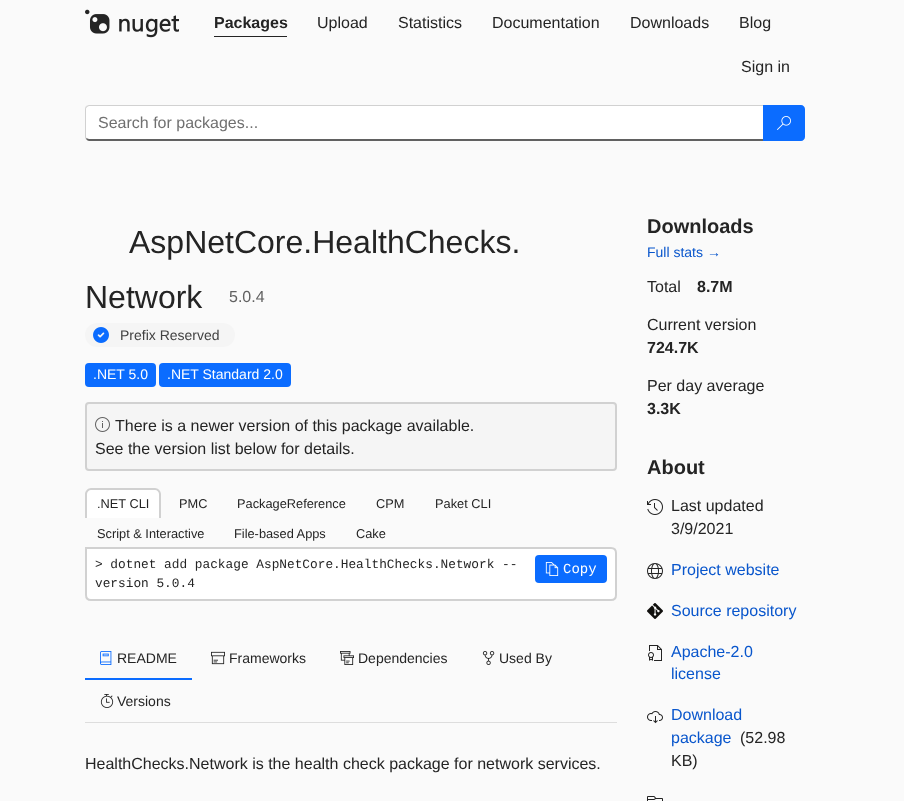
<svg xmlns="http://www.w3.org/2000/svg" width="904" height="801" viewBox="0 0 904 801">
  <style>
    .t1 { font: bold 16px Liberation Sans; fill: #242424; }
    .t2 { font: 16px Liberation Sans; fill: #242424; }
    .t3 { font: 16px Liberation Sans; fill: #707070; }
    .t4 { font: 32px Liberation Sans; fill: #242424; }
    .t5 { font: 16px Liberation Sans; fill: #616161; }
    .t6 { font: 14px Liberation Sans; fill: #424242; }
    .t7 { font: 14px Liberation Sans; fill: #fff; }
    .t8 { font: 12.8px Liberation Sans; fill: #242424; }
    .t9 { font: 12.8px Liberation Mono; fill: #242424; }
    .t10 { font: 14px Liberation Mono; fill: #fff; }
    .t11 { font: 14px Liberation Sans; fill: #242424; }
    .t12 { font: bold 20px Liberation Sans; fill: #242424; }
    .t13 { font: 14px Liberation Sans; fill: #0956cc; }
    .t14 { font: 16px Liberation Sans; fill: #0956cc; }
  </style>
  <rect width="100%" height="100%" fill="#fafafa"/>
  <image x="85" y="9" width="94" height="29" href="images/1.png"/>
  <text x="214" y="28" class="t1">Packages</text>
  <rect x="214" y="36" width="73" height="1" fill="#242424"/>
  <text x="317" y="28" class="t2">Upload</text>
  <text x="398" y="28" class="t2">Statistics</text>
  <text x="492" y="28" class="t2">Documentation</text>
  <text x="630" y="28" class="t2">Downloads</text>
  <text x="739" y="28" class="t2">Blog</text>
  <text x="741" y="72" class="t2">Sign in</text>
  <path d="M89 106H763V139H89C87 139 86 138 86 137V109C86 107 87 106 89 106Z" fill="#fff"/>
  <path d="M89 105L86 106L87 107L89 106H763L764 105Z" fill="#d1d1d1"/>
  <path d="M764 141L763 139H89L86 138V139C87 140 88 141 89 141Z" fill="#616161"/>
  <path d="M85 109V137C85 138 85.5 138.5 86 139.5L86.5 138L86 137V108.5L87 107L86 106C85.5 107 85 108 85 109Z" fill="#d1d1d1"/>
  <text x="98" y="128" class="t3">Search for packages...</text>
  <path d="M763 105H801C803 105 805 107 805 109V137C805 139 803 141 801 141H763Z" fill="#0b6cff"/>
  <image x="777" y="116" width="14" height="14" href="images/2.png"/>
  <text x="129" y="253" class="t4">AspNetCore.HealthChecks.</text>
  <text x="85" y="308" class="t4">Network</text>
  <text x="229" y="302" class="t5">5.0.4</text>
  <rect x="85" y="323" width="150" height="24" rx="12" fill="#f5f5f5"/>
  <image x="93" y="327" width="16" height="16" href="images/3.png"/>
  <text x="120" y="340" class="t6">Prefix Reserved</text>
  <rect x="85" y="363" width="71" height="24" rx="4" fill="#0b6cff"/>
  <text x="93" y="379" class="t7">.NET 5.0</text>
  <rect x="159" y="363" width="132" height="24" rx="4" fill="#0b6cff"/>
  <text x="167" y="379" class="t7">.NET Standard 2.0</text>
  <rect x="86" y="403" width="530" height="67" rx="3" fill="#f5f5f5" stroke="#d1d1d1" stroke-width="2"/>
  <image x="95" y="417" width="15" height="15" href="images/4.png"/>
  <text x="115" y="431" class="t2">There is a newer version of this package available.</text>
  <text x="95" y="454" class="t2">See the version list below for details.</text>
  <path d="M91 488H155C158.5 488 161 490.5 161 494V518H85V494C85 490.5 87.5 488 91 488Z" fill="#fff"/>
  <path d="M91 488H155C158 488 161 491 161 494V518H85V494C85 491 88 488 91 488ZM91 490H155C157 490 159 492 159 494V518H87V494C87 492 89 490 91 490Z" fill="#d1d1d1" fill-rule="evenodd"/>
  <text x="97" y="508" class="t8">.NET CLI</text>
  <text x="179" y="508" class="t8">PMC</text>
  <text x="237" y="508" class="t8">PackageReference</text>
  <text x="376" y="508" class="t8">CPM</text>
  <text x="435" y="508" class="t8">Paket CLI</text>
  <text x="97" y="538" class="t8">Script &amp; Interactive</text>
  <text x="234" y="538" class="t8">File-based Apps</text>
  <text x="356" y="538" class="t8">Cake</text>
  <path d="M86 548H611C614 548 616 550 616 553V595C616 598 614 600 611 600H91C88 600 86 598 86 595Z" fill="#fff" stroke="#d1d1d1" stroke-width="2"/>
  <text x="95" y="568" class="t9">&gt; dotnet add package AspNetCore.HealthChecks.Network --</text>
  <text x="95" y="587" class="t9">version 5.0.4</text>
  <rect x="535" y="555" width="72" height="28" rx="4" fill="#0b6cff"/>
  <image x="545" y="562" width="14" height="14" href="images/5.png"/>
  <text x="563" y="573" class="t10">Copy</text>
  <rect x="85" y="722" width="532" height="1" fill="#ddd"/>
  <rect x="85" y="678" width="107" height="2" fill="#0b6cff"/>
  <image x="100" y="651" width="12" height="14" href="images/6.png"/>
  <text x="117" y="663" class="t11">README</text>
  <image x="211" y="651" width="14" height="14" href="images/7.png"/>
  <text x="229" y="663" class="t11">Frameworks</text>
  <image x="340" y="651" width="14" height="14" href="images/8.png"/>
  <text x="358" y="663" class="t11">Dependencies</text>
  <image x="482" y="651" width="13" height="14" href="images/9.png"/>
  <text x="499" y="663" class="t11">Used By</text>
  <image x="100" y="694" width="14" height="14" href="images/10.png"/>
  <text x="117" y="706" class="t11">Versions</text>
  <text x="85" y="769" class="t2">HealthChecks.Network is the health check package for network services.</text>
  <text x="647" y="233" class="t12">Downloads</text>
  <text x="647" y="257" class="t13">Full stats →</text>
  <text x="647" y="292" class="t2">Total</text>
  <text x="697" y="292" class="t1">8.7M</text>
  <text x="647" y="330" class="t2">Current version</text>
  <text x="647" y="353" class="t1">724.7K</text>
  <text x="647" y="391" class="t2">Per day average</text>
  <text x="647" y="414" class="t1">3.3K</text>
  <text x="647" y="474" class="t12">About</text>
  <image x="647" y="499" width="16" height="16" href="images/11.png"/>
  <text x="671" y="511" class="t2">Last updated</text>
  <text x="671" y="534" class="t2">3/9/2021</text>
  <image x="647" y="563" width="16" height="16" href="images/12.png"/>
  <text x="671" y="575" class="t14">Project website</text>
  <image x="647" y="603" width="16" height="16" href="images/13.png"/>
  <text x="671" y="616" class="t14">Source repository</text>
  <image x="648" y="645" width="14" height="16" href="images/14.png"/>
  <text x="671" y="657" class="t14">Apache-2.0</text>
  <text x="671" y="679" class="t14">license</text>
  <image x="647" y="711" width="16" height="13" href="images/15.png"/>
  <text x="671" y="720" class="t14">Download</text>
  <text x="671" y="743" class="t14">package</text>
  <text x="740" y="743" class="t2">(52.98</text>
  <text x="671" y="766" class="t2">KB)</text>
  <image x="647" y="796" width="16" height="5" href="images/16.png"/>
</svg>
